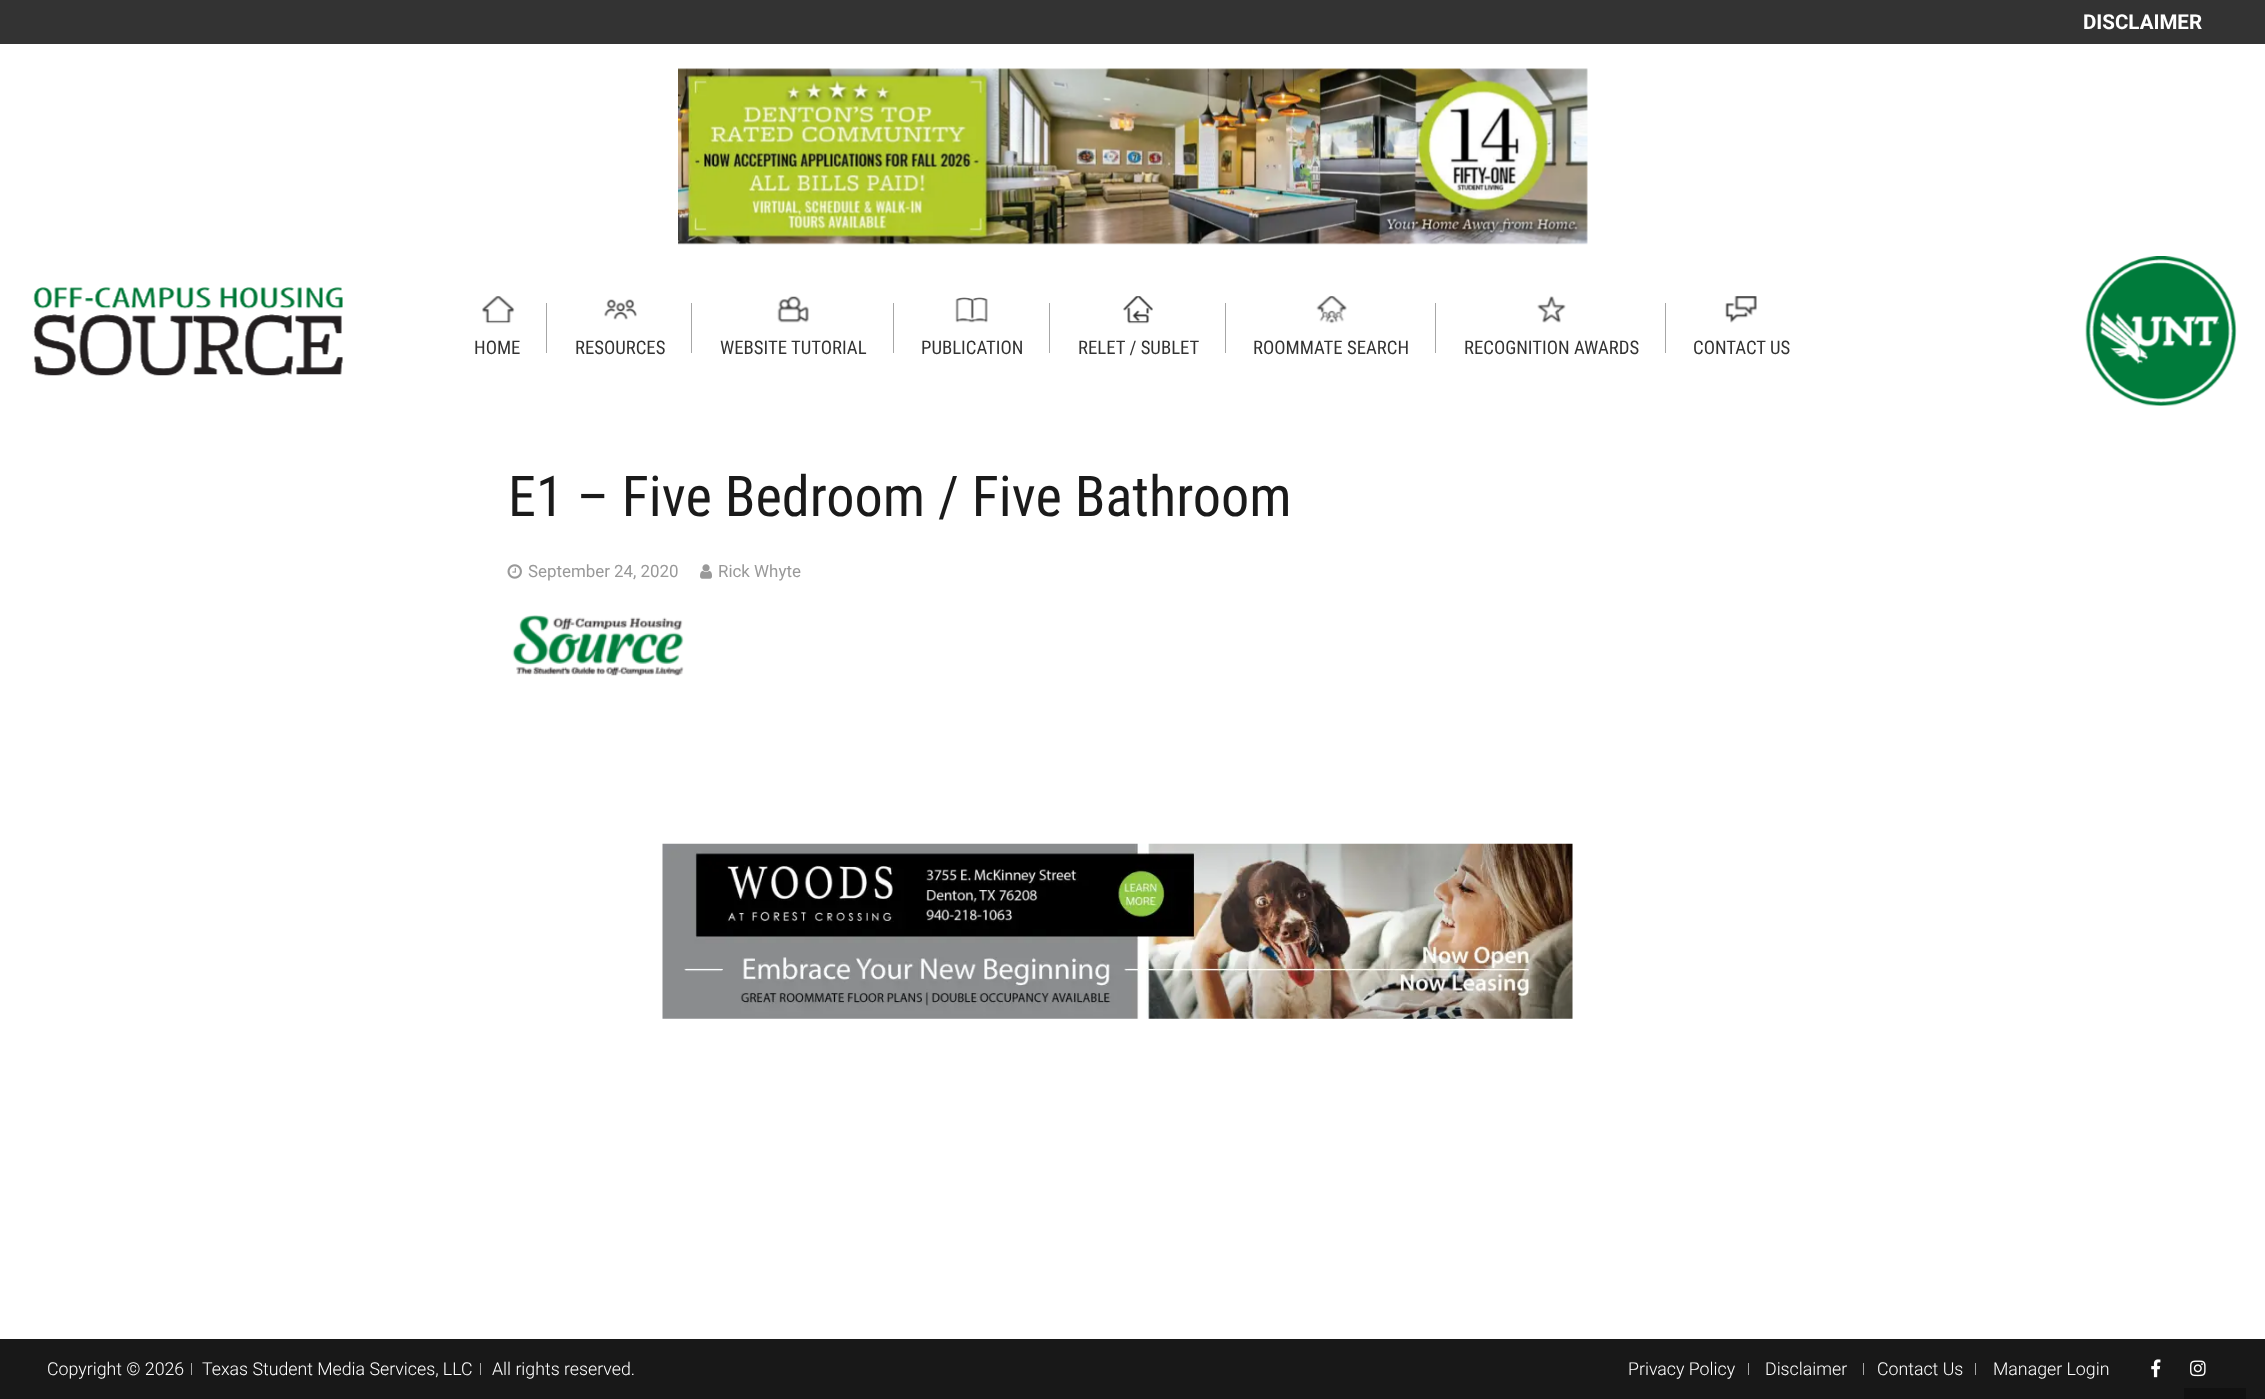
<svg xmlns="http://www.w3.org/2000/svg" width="2265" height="1399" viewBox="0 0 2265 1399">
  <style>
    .t1 { font: bold 20.5px Roboto; fill: #fff; }
    .t2 { font: 18.75px Roboto Condensed; fill: #333; }
    .t3 { font: 56.25px Roboto Condensed; fill: #1a1a1a; }
    .t4 { font: 16.9px Roboto; fill: #999; }
    .t5 { font: 300 17.75px Roboto; fill: #fff; }
  </style>
  <rect width="100%" height="100%" fill="#fff"/>
  <rect x="0" y="0" width="2265" height="44" fill="#333"/>
  <text x="2083" y="29" class="t1">DISCLAIMER</text>
  <image x="678" y="68" width="910" height="177" href="images/1.png"/>
  <image x="33" y="287" width="310" height="89" href="images/2.png"/>
  <image x="482" y="296" width="33" height="28" href="images/3.png"/>
  <rect x="546" y="303" width="1" height="50" fill="#a7a7a7"/>
  <text x="474" y="354" class="t2">HOME</text>
  <image x="604" y="299" width="33" height="21" href="images/4.png"/>
  <rect x="691" y="303" width="1" height="50" fill="#a7a7a7"/>
  <text x="575" y="354" class="t2">RESOURCES</text>
  <image x="777" y="296" width="32" height="27" href="images/5.png"/>
  <rect x="893" y="303" width="1" height="50" fill="#a7a7a7"/>
  <text x="720" y="354" class="t2">WEBSITE TUTORIAL</text>
  <image x="955" y="297" width="33" height="26" href="images/6.png"/>
  <rect x="1049" y="303" width="1" height="50" fill="#a7a7a7"/>
  <text x="921" y="354" class="t2">PUBLICATION</text>
  <image x="1123" y="296" width="30" height="28" href="images/7.png"/>
  <rect x="1225" y="303" width="1" height="50" fill="#a7a7a7"/>
  <text x="1078" y="354" class="t2">RELET / SUBLET</text>
  <image x="1316" y="296" width="31" height="28" href="images/8.png"/>
  <rect x="1435" y="303" width="1" height="50" fill="#a7a7a7"/>
  <text x="1253" y="354" class="t2">ROOMMATE SEARCH</text>
  <image x="1537" y="296" width="29" height="27" href="images/9.png"/>
  <rect x="1665" y="303" width="1" height="50" fill="#a7a7a7"/>
  <text x="1464" y="354" class="t2">RECOGNITION AWARDS</text>
  <image x="1725" y="296" width="32" height="27" href="images/10.png"/>
  <text x="1693" y="354" class="t2">CONTACT US</text>
  <image x="2085" y="256" width="152" height="150" href="images/11.png"/>
  <text x="508" y="516" class="t3">E1 – Five Bedroom / Five Bathroom</text>
  <image x="507" y="564" width="15" height="15" href="images/12.png"/>
  <text x="528" y="577" class="t4">September 24, 2020</text>
  <image x="700" y="564" width="12" height="15" href="images/13.png"/>
  <text x="718" y="577" class="t4">Rick Whyte</text>
  <image x="512" y="615" width="172" height="61" href="images/14.png"/>
  <image x="662" y="843" width="911" height="176" href="images/15.png"/>
  <rect x="0" y="1339" width="2265" height="60" fill="#181818"/>
  <text x="47" y="1375" class="t5">Copyright © 2026</text>
  <rect x="191" y="1363" width="1" height="12" fill="#a7a7a7"/>
  <text x="202" y="1375" class="t5">Texas Student Media Services, LLC</text>
  <rect x="480" y="1363" width="1" height="12" fill="#a7a7a7"/>
  <text x="492" y="1375" class="t5">All rights reserved.</text>
  <text x="1628" y="1375" class="t5">Privacy Policy</text>
  <rect x="1748" y="1363" width="1" height="12" fill="#a7a7a7"/>
  <text x="1765" y="1375" class="t5">Disclaimer</text>
  <rect x="1863" y="1363" width="1" height="12" fill="#a7a7a7"/>
  <text x="1877" y="1375" class="t5">Contact Us</text>
  <rect x="1975" y="1363" width="1" height="12" fill="#a7a7a7"/>
  <text x="1993" y="1375" class="t5">Manager Login</text>
  <image x="2151" y="1359" width="10" height="19" href="images/16.png"/>
  <image x="2190" y="1360" width="16" height="17" href="images/17.png"/>
  <rect x="2184" y="1388" width="62" height="11" fill="#111"/>
</svg>
